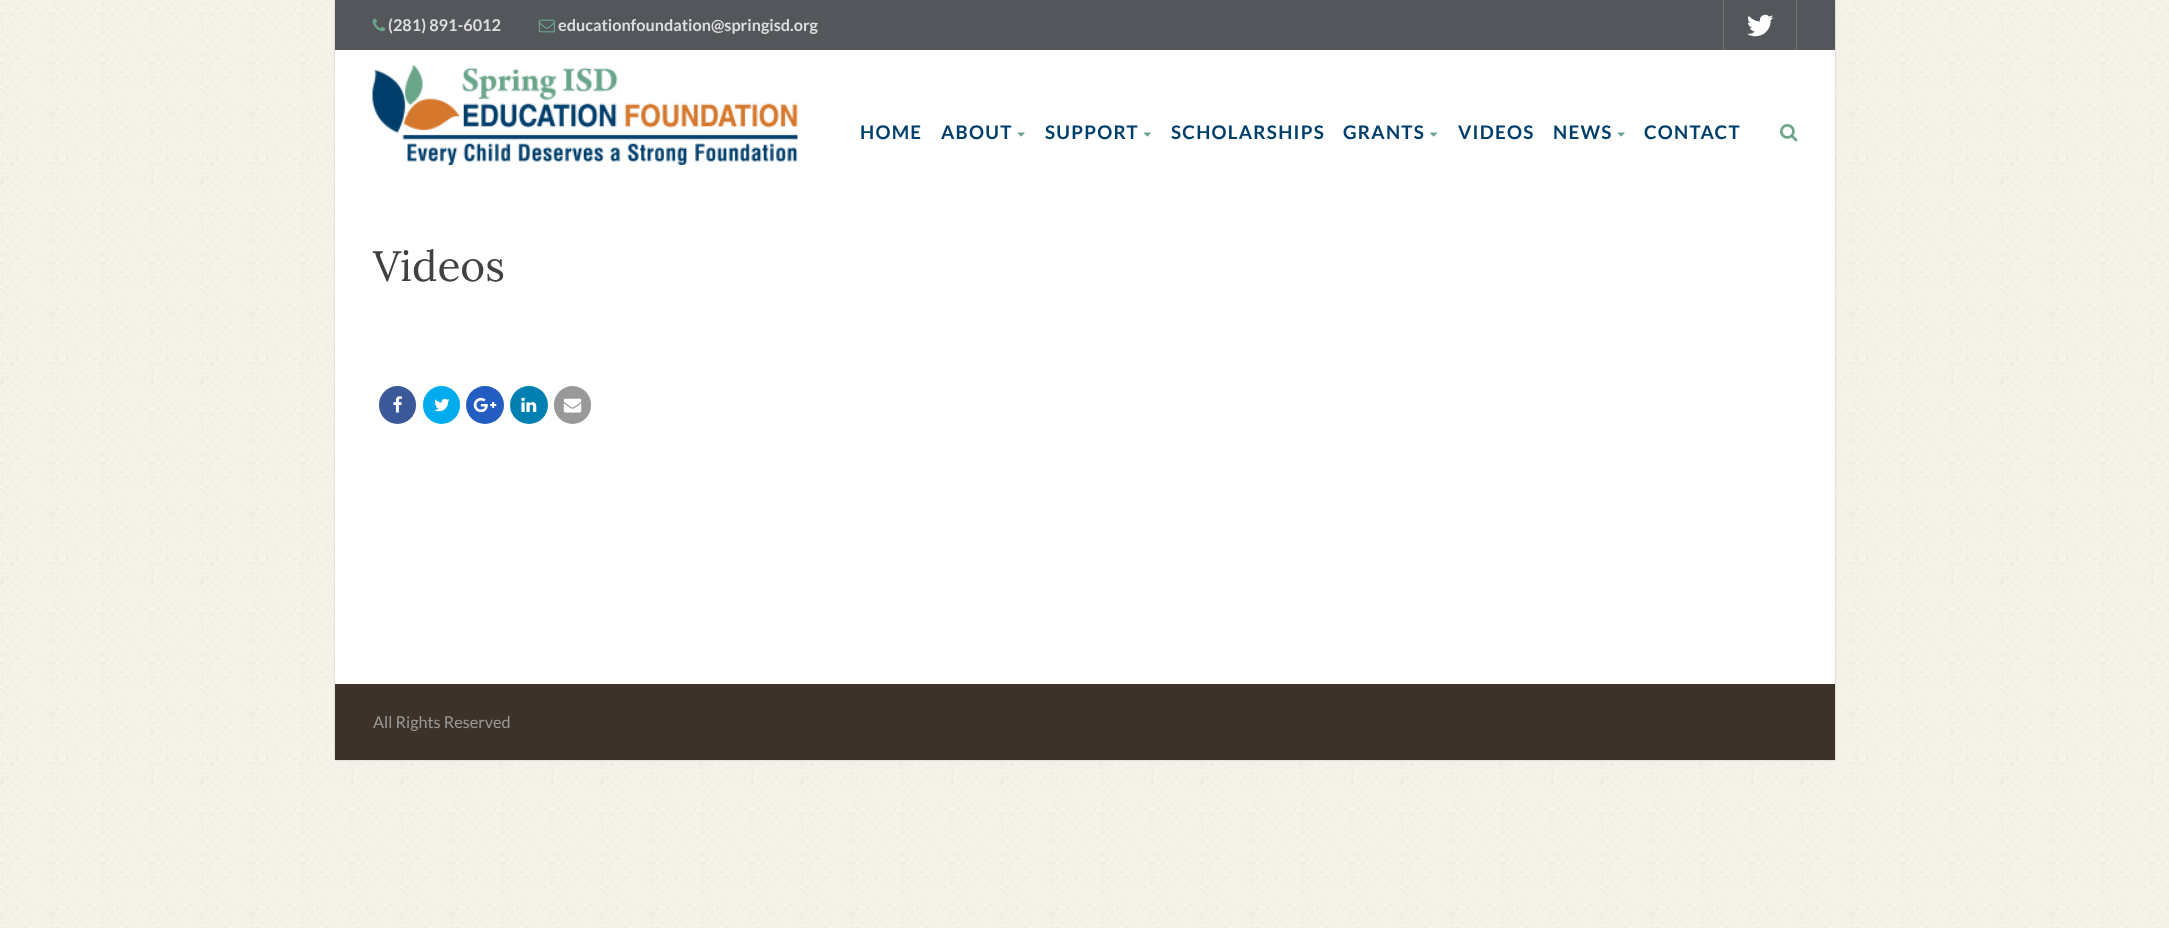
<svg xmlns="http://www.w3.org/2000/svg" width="2169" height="928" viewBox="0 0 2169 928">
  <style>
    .t1 { font: bold 16.25px Lato; fill: #ddd; }
    .t2 { font: bold 18.75px Lato; letter-spacing: 1.25px; fill: #003e6b; }
    .t3 { font: 42.5px Lora; fill: #404142; }
    .t4 { font: 16.25px Lato; fill: #999; }
  </style>
  <rect width="100%" height="100%" fill="#fff"/>
  <image x="0" y="0" width="2169" height="928" href="images/1.png"/>
  <rect x="335" y="0" width="1500" height="760" fill="#00000033" filter="blur(1px)"/>
  <rect x="335" y="50" width="1500" height="634" fill="#fff"/>
  <rect x="335" y="0" width="1500" height="50" fill="#53565a"/>
  <image x="372" y="18" width="14" height="14" href="images/2.png"/>
  <text x="388" y="31" class="t1">(281) 891-6012</text>
  <image x="538" y="19" width="17" height="14" href="images/3.png"/>
  <text x="558" y="31" class="t1">educationfoundation@springisd.org</text>
  <rect x="1723" y="0" width="1" height="50" fill="#75787b"/>
  <rect x="1796" y="0" width="1" height="50" fill="#75787b"/>
  <image x="1747" y="14" width="27" height="23" href="images/4.png"/>
  <image x="372" y="65" width="426" height="100" href="images/5.png"/>
  <text x="860" y="139" class="t2">HOME</text>
  <text x="941" y="139" class="t2">ABOUT</text>
  <image x="1017" y="132" width="8" height="5" href="images/6.png"/>
  <text x="1045" y="139" class="t2">SUPPORT</text>
  <image x="1143" y="132" width="8" height="5" href="images/7.png"/>
  <text x="1171" y="139" class="t2">SCHOLARSHIPS</text>
  <text x="1343" y="139" class="t2">GRANTS</text>
  <image x="1430" y="132" width="8" height="5" href="images/8.png"/>
  <text x="1458" y="139" class="t2">VIDEOS</text>
  <text x="1553" y="139" class="t2">NEWS</text>
  <image x="1617" y="132" width="8" height="5" href="images/6.png"/>
  <text x="1644" y="139" class="t2">CONTACT</text>
  <image x="1780" y="124" width="18" height="18" href="images/9.png"/>
  <text x="373" y="281" class="t3">Videos</text>
  <rect x="379" y="386" width="37" height="38" rx="18.5" fill="#3b5998"/>
  <image x="393" y="396" width="9" height="17" href="images/10.png"/>
  <rect x="423" y="386" width="37" height="38" rx="18.5" fill="#00aced"/>
  <image x="434" y="398" width="16" height="14" href="images/11.png"/>
  <circle cx="485" cy="405" r="19" fill="#245dc1"/>
  <image x="473" y="397" width="24" height="16" href="images/12.png"/>
  <circle cx="529" cy="405" r="19" fill="#007fb1"/>
  <image x="521" y="397" width="16" height="15" href="images/13.png"/>
  <rect x="554" y="386" width="37" height="38" rx="18.5" fill="#999"/>
  <image x="563" y="398" width="19" height="15" href="images/14.png"/>
  <rect x="335" y="684" width="1500" height="76" fill="#3c3229"/>
  <text x="373" y="728" class="t4">All Rights Reserved</text>
</svg>
